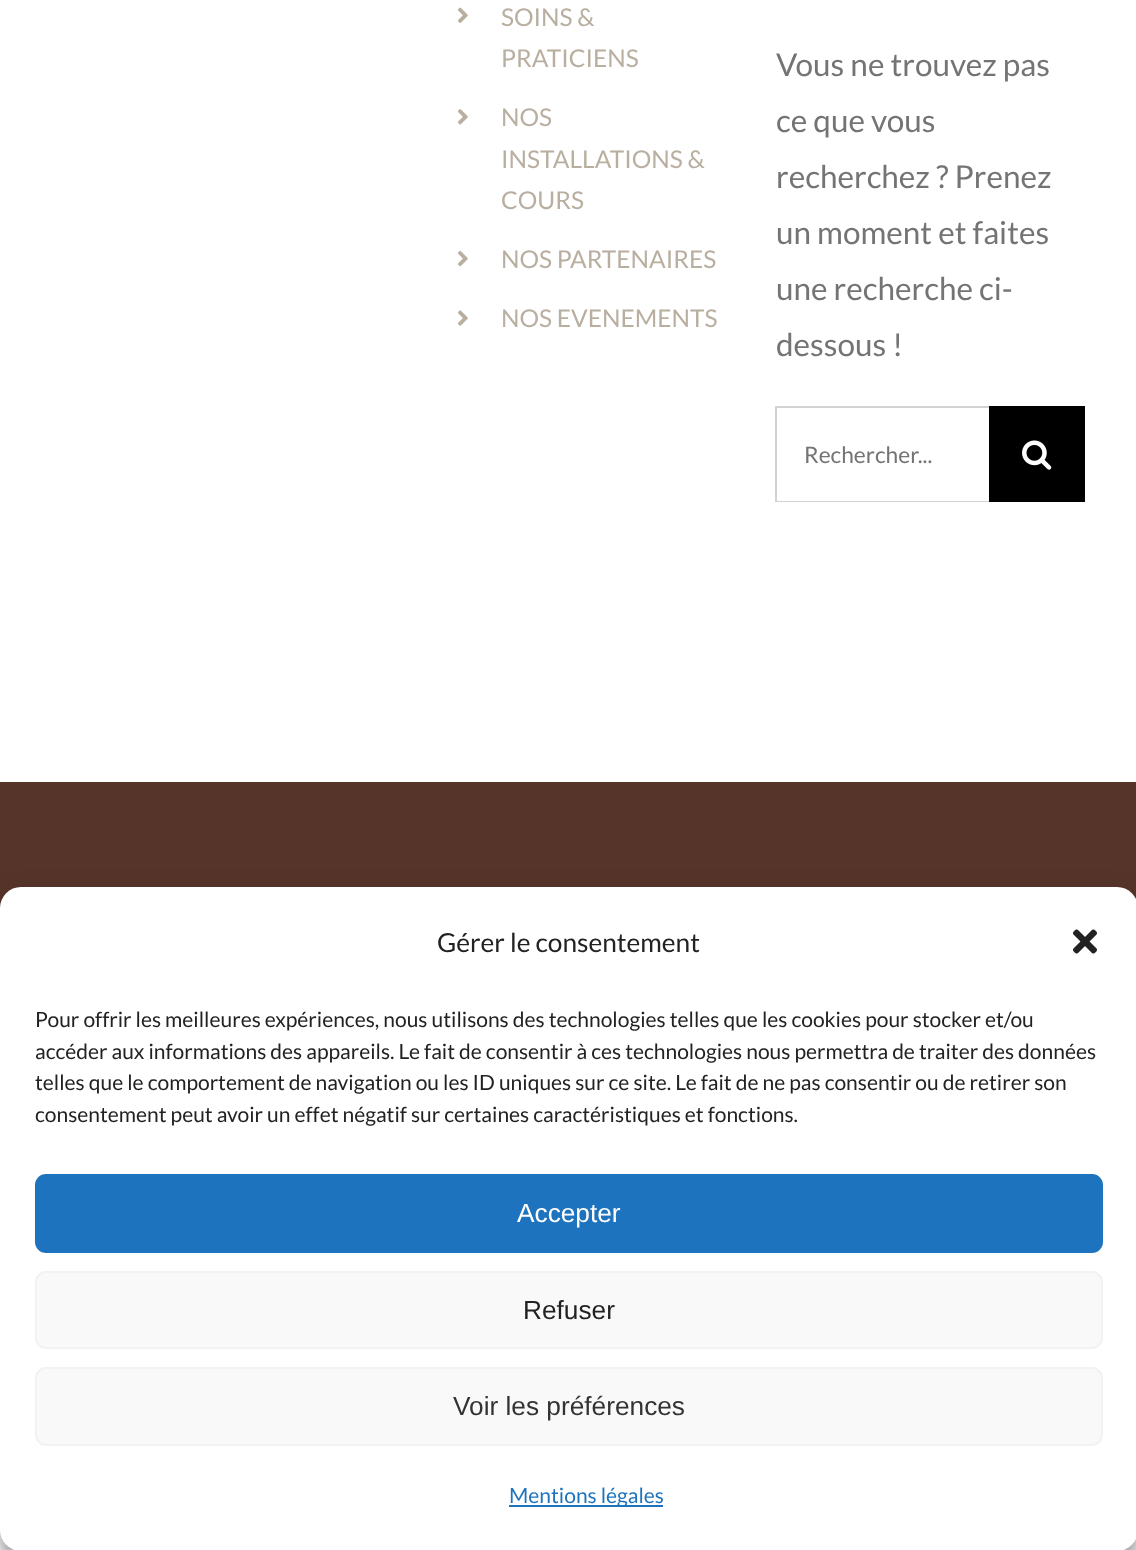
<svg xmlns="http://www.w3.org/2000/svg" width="1136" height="1550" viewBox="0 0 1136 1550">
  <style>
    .t1 { font: 24.5px Lato; fill: #b9afa1; }
    .t2 { font: 31.5px Lato; fill: #747474; }
    .t3 { font: 22.75px Lato; fill: #747474; }
    .t4 { font: 26.25px Lato; fill: #222; }
    .t5 { font: 21px Lato; fill: #222; }
    .t6 { font: 26.25px Liberation Sans; fill: #fff; }
    .t7 { font: 26.25px Liberation Sans; fill: #222; }
    .t8 { font: 26.25px Liberation Sans; fill: #333; }
    .t9 { font: 21px Lato; fill: #1e73be; }
  </style>
  <rect width="100%" height="100%" fill="#fff"/>
  <image x="458" y="7" width="10" height="16" href="images/1.png"/>
  <text x="501" y="26" class="t1">SOINS &amp;</text>
  <text x="501" y="67" class="t1">PRATICIENS</text>
  <image x="458" y="109" width="10" height="16" href="images/2.png"/>
  <text x="501" y="126" class="t1">NOS</text>
  <text x="501" y="168" class="t1">INSTALLATIONS &amp;</text>
  <text x="501" y="209" class="t1">COURS</text>
  <image x="458" y="251" width="10" height="16" href="images/3.png"/>
  <text x="501" y="268" class="t1">NOS PARTENAIRES</text>
  <image x="458" y="310" width="10" height="16" href="images/4.png"/>
  <text x="501" y="327" class="t1">NOS EVENEMENTS</text>
  <text x="776" y="76" class="t2">Vous ne trouvez pas</text>
  <text x="776" y="132" class="t2">ce que vous</text>
  <text x="776" y="188" class="t2">recherchez ? Prenez</text>
  <text x="776" y="244" class="t2">un moment et faites</text>
  <text x="776" y="300" class="t2">une recherche ci-</text>
  <text x="776" y="356" class="t2">dessous !</text>
  <rect x="775" y="406" width="214" height="2" fill="#d2d2d2"/>
  <rect x="775" y="501" width="214" height="1" fill="#d2d2d2"/>
  <rect x="775" y="406" width="2" height="96" fill="#d2d2d2"/>
  <text x="804" y="463" class="t3">Rechercher...</text>
  <rect x="989" y="406" width="96" height="96" fill="#000"/>
  <image x="1022" y="440" width="30" height="30" href="images/5.png"/>
  <rect x="0" y="782" width="1136" height="126" fill="#56342a"/>
  <rect x="0" y="898" width="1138" height="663" rx="21" fill="#0000003b" filter="blur(5px)"/>
  <rect x="0" y="905" width="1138" height="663" rx="21" fill="#00000030" filter="blur(17.5px)"/>
  <rect x="0" y="887" width="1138" height="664" rx="21" fill="#fff"/>
  <text x="437" y="952" class="t4">Gérer le consentement</text>
  <image x="1073" y="929" width="24" height="25" href="images/6.png"/>
  <text x="35" y="1027" class="t5">Pour offrir les meilleures expériences, nous utilisons des technologies telles que les cookies pour stocker et/ou</text>
  <text x="35" y="1059" class="t5">accéder aux informations des appareils. Le fait de consentir à ces technologies nous permettra de traiter des données</text>
  <text x="35" y="1090" class="t5">telles que le comportement de navigation ou les ID uniques sur ce site. Le fait de ne pas consentir ou de retirer son</text>
  <text x="35" y="1122" class="t5">consentement peut avoir un effet négatif sur certaines caractéristiques et fonctions.</text>
  <rect x="36" y="1175" width="1066" height="77" rx="10" fill="#1e73be" stroke="#1e73be" stroke-width="2"/>
  <text x="517" y="1222" class="t6">Accepter</text>
  <rect x="36" y="1272" width="1066" height="76" rx="10" fill="#f9f9f9" stroke="#f2f2f2" stroke-width="2"/>
  <text x="523" y="1319" class="t7">Refuser</text>
  <rect x="36" y="1368" width="1066" height="77" rx="10" fill="#f9f9f9" stroke="#f2f2f2" stroke-width="2"/>
  <text x="453" y="1415" class="t8">Voir les préférences</text>
  <rect x="509" y="1505" width="154" height="2" fill="#1e73be"/>
  <text x="509" y="1503" class="t9">Mentions légales</text>
</svg>
